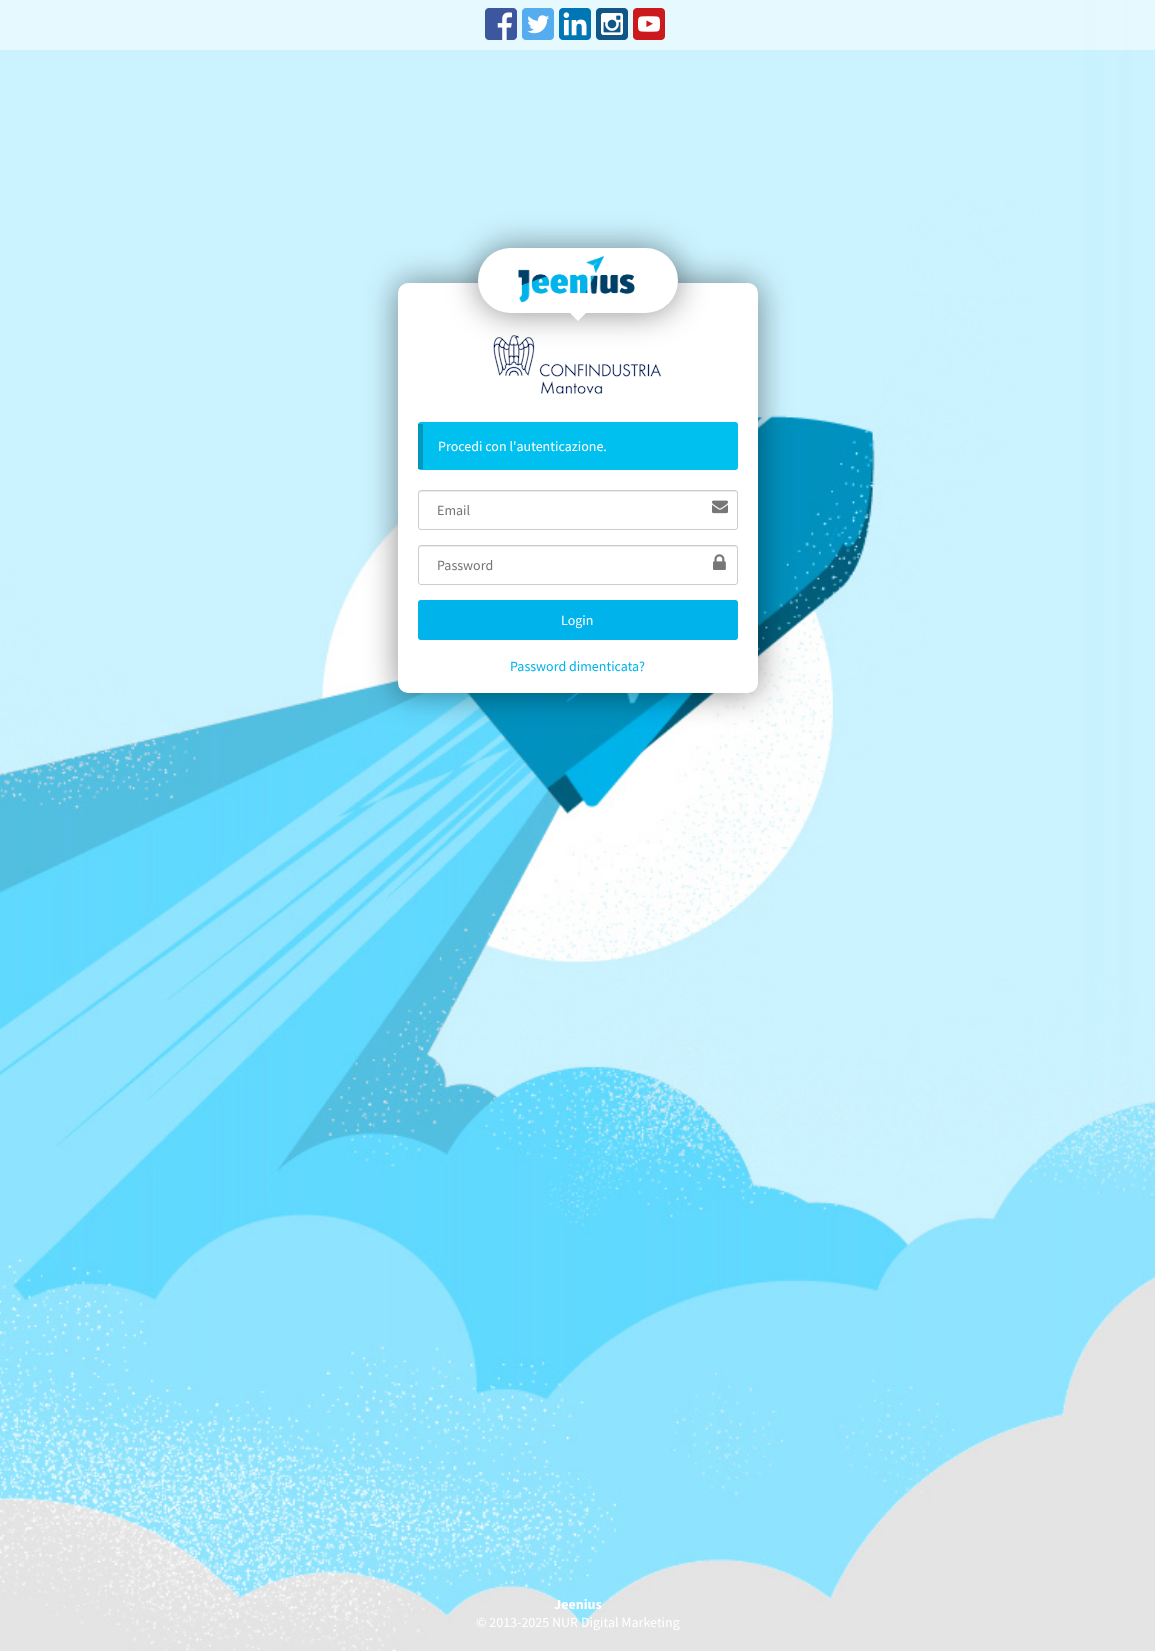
<svg xmlns="http://www.w3.org/2000/svg" width="1155" height="1651" viewBox="0 0 1155 1651">
  <style>
    .t1 { font: 14px Source Sans Pro; fill: #fff; }
    .t2 { font: 14px Source Sans Pro; fill: #757575; }
    .t3 { font: 14px Source Sans Pro; fill: #00b3ea; }
    .t4 { font: bold 14px Source Sans Pro; fill: #fff; }
  </style>
  <rect width="100%" height="100%" fill="#fff"/>
  <image x="0" y="0" width="1155" height="1651" href="images/1.png"/>
  <rect x="0" y="0" width="1155" height="50" fill="#ffffff80"/>
  <image x="485" y="8" width="32" height="32" href="images/2.png"/>
  <image x="522" y="8" width="32" height="32" href="images/3.png"/>
  <image x="559" y="8" width="32" height="32" href="images/4.png"/>
  <image x="596" y="8" width="32" height="32" href="images/5.png"/>
  <image x="633" y="8" width="32" height="32" href="images/6.png"/>
  <rect x="398" y="283" width="360" height="410" rx="10" fill="#00000073" filter="blur(16px)"/>
  <rect x="398" y="283" width="360" height="410" rx="10" fill="#fff"/>
  <image x="493" y="335" width="169" height="59" href="images/8.png"/>
  <rect x="478" y="248" width="200" height="65" rx="32.5" fill="#00000073" filter="blur(16px)"/>
  <rect x="478" y="248" width="200" height="65" rx="32.5" fill="#fff"/>
  <image x="518" y="256" width="117" height="47" href="images/7.png"/>
  <path d="M568 311H588L578 321Z" fill="#fff"/>
  <rect x="418" y="422" width="320" height="48" rx="3" fill="#00c0ef"/>
  <rect x="418" y="424" width="5" height="45" fill="#0097bc"/>
  <text x="438" y="451" class="t1">Procedi con l'autenticazione.</text>
  <path d="M421 492H735C736 492 737 493 737 494C737 493 737 491 735 491H420L419 492V494C419 493 420 492 421 492Z" fill="#ececec"/>
  <rect x="418.5" y="490.5" width="319" height="39" rx="2.5" fill="none" stroke="#ccc"/>
  <text x="437" y="515" class="t2">Email</text>
  <image x="712" y="500" width="16" height="14" href="images/9.png"/>
  <path d="M421 547H735C736 547 737 548 737 549C737 548 737 546 735 546H420L419 547V549C419 548 420 547 421 547Z" fill="#ececec"/>
  <rect x="418.5" y="545.5" width="319" height="39" rx="2.5" fill="none" stroke="#ccc"/>
  <text x="437" y="570" class="t2">Password</text>
  <image x="713" y="554" width="13" height="16" href="images/10.png"/>
  <rect x="418" y="600" width="320" height="40" rx="3" fill="#00b3ea"/>
  <text x="561" y="625" class="t1">Login</text>
  <text x="510" y="671" class="t3">Password dimenticata?</text>
  <text x="554" y="1609" class="t4">Jeenius</text>
  <text x="476" y="1627" class="t1">© 2013-2025 NUR Digital Marketing</text>
</svg>
